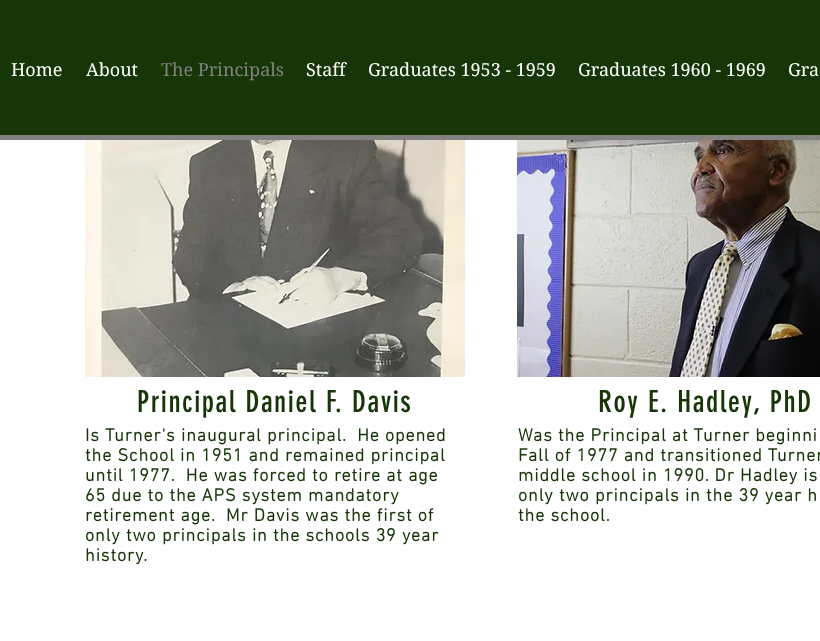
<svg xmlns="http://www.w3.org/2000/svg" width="820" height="641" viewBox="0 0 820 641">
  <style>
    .t1 { font: 18px 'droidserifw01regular'; fill: #fff; }
    .t2 { font: 18px 'droidserifw01regular'; fill: #818181; }
    .t3 { font: 30px 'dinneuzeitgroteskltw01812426'; letter-spacing: 1.5px; fill: #163607; }
    .t4 { font: bold 18px 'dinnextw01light'; letter-spacing: 0.9px; fill: #163607; }
  </style>
  <rect width="100%" height="100%" fill="#fff"/>
  <rect x="0" y="0" width="820" height="135" fill="#163607"/>
  <rect x="0" y="135" width="820" height="5" fill="#818181"/>
  <text x="11" y="76" class="t1">Home</text>
  <text x="86" y="76" class="t1">About</text>
  <text x="161" y="76" class="t2">The Principals</text>
  <text x="306" y="76" class="t1">Staff</text>
  <text x="368" y="76" class="t1">Graduates 1953 - 1959</text>
  <text x="578" y="76" class="t1">Graduates 1960 - 1969</text>
  <text x="788" y="76" class="t1">Gra</text>
  <image x="85" y="140" width="380" height="237" href="images/1.png"/>
  <text x="137" y="412" class="t3">Principal Daniel F. Davis</text>
  <text x="85" y="441" class="t4" xml:space="preserve">Is Turner's inaugural principal.  He opened</text>
  <text x="85" y="461" class="t4">the School in 1951 and remained principal</text>
  <text x="85" y="481" class="t4" xml:space="preserve">until 1977.  He was forced to retire at age</text>
  <text x="85" y="501" class="t4">65 due to the APS system mandatory</text>
  <text x="85" y="521" class="t4" xml:space="preserve">retirement age.  Mr Davis was the first of</text>
  <text x="85" y="541" class="t4">only two principals in the schools 39 year</text>
  <text x="85" y="561" class="t4">history.</text>
  <image x="517" y="140" width="303" height="237" href="images/2.png"/>
  <text x="598" y="412" class="t3">Roy E. Hadley, PhD</text>
  <text x="518" y="441" class="t4">Was the Principal at Turner beginni</text>
  <text x="518" y="461" class="t4">Fall of 1977 and transitioned Turner</text>
  <text x="518" y="481" class="t4">middle school in 1990. Dr Hadley is</text>
  <text x="518" y="501" class="t4">only two principals in the 39 year h</text>
  <text x="518" y="521" class="t4">the school.</text>
</svg>
